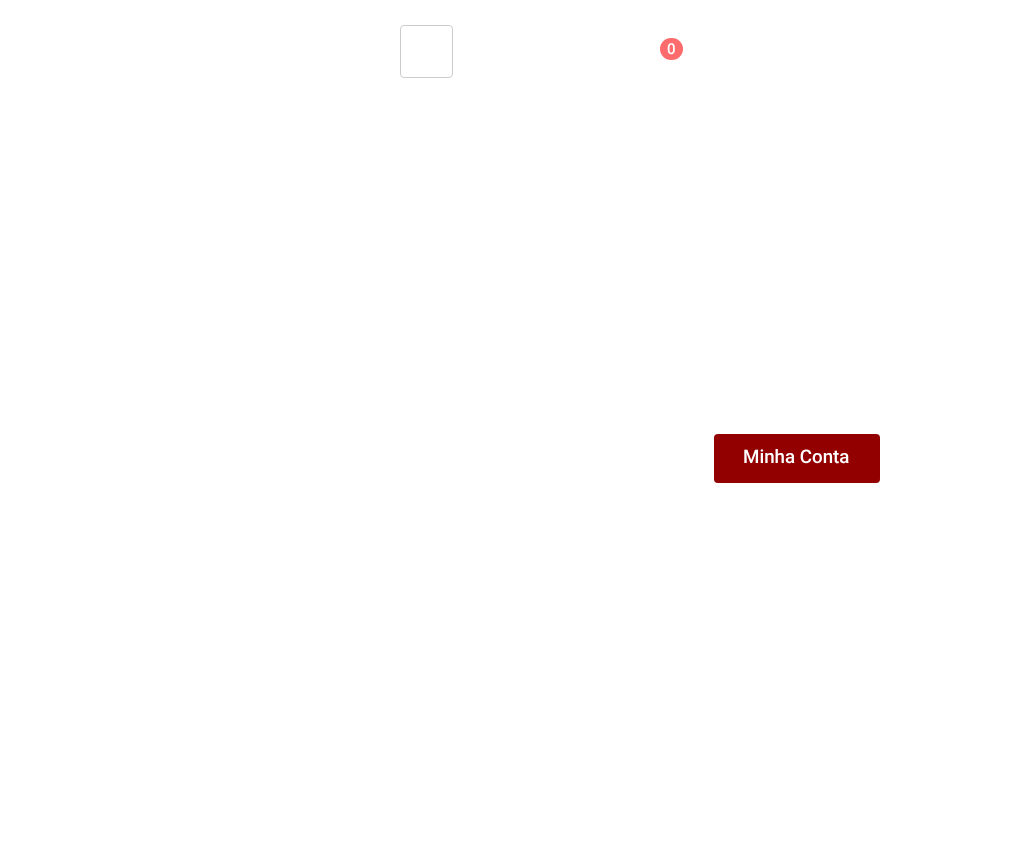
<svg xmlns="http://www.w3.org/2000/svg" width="1025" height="865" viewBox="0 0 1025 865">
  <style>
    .t1 { font: 500 15px Roboto; fill: #fff; }
    .t2 { font: 500 18.75px Roboto; fill: #fff; }
  </style>
  <rect width="100%" height="100%" fill="#fff"/>
  <rect x="400.5" y="25.5" width="52" height="52" rx="3.5" fill="none" stroke="#ccc"/>
  <rect x="660" y="38" width="23" height="22" rx="11" fill="#fd6b6d"/>
  <text x="667" y="54" class="t1">0</text>
  <rect x="714" y="434" width="166" height="49" rx="4" fill="#920000"/>
  <text x="743" y="463" class="t2">Minha Conta</text>
</svg>
